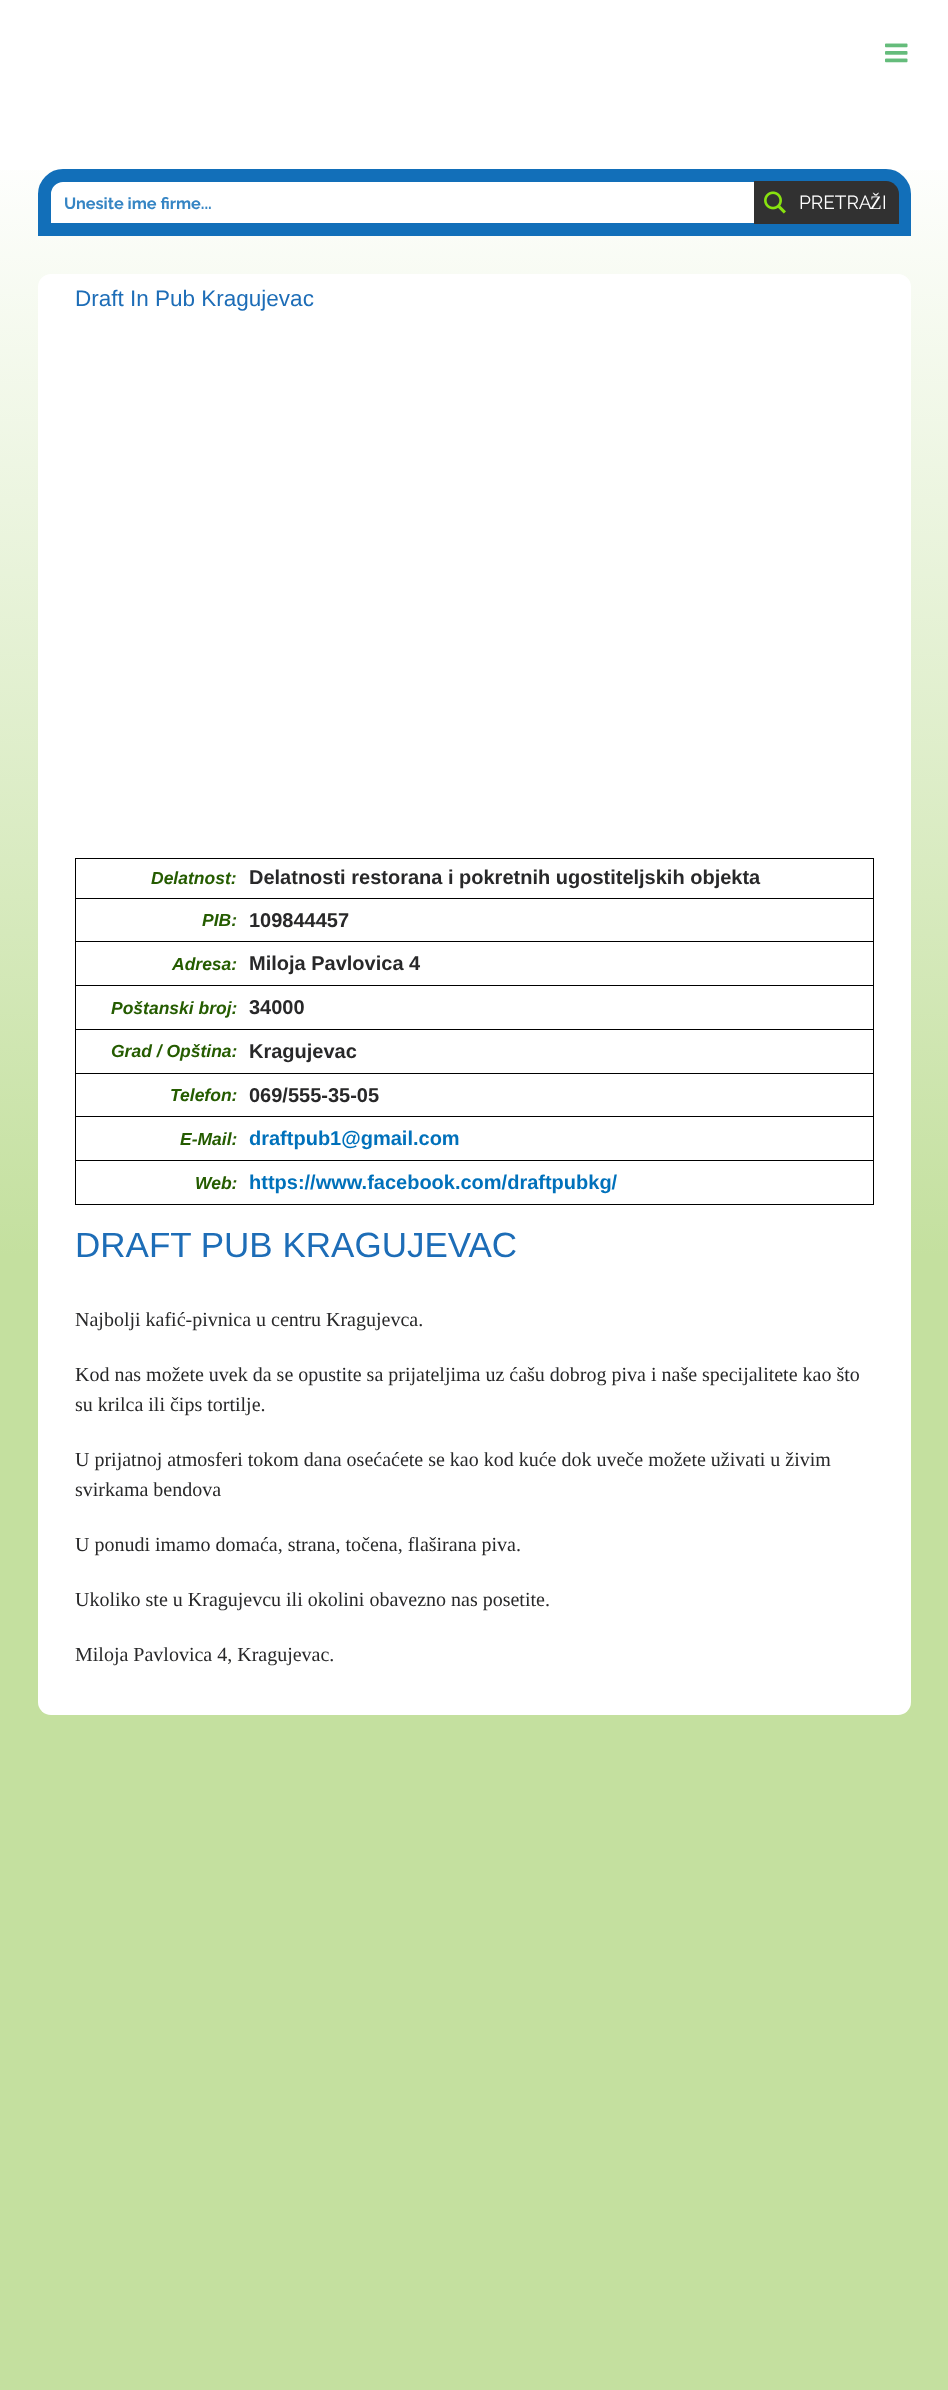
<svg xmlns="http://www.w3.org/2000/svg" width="948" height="2390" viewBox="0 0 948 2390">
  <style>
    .t1 { font: 100 16.25px Raleway; fill: #3685c4; }
    .t2 { font: 100 19px 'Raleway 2'; fill: #fff; }
    .t3 { font: 19px Liberation Serif; fill: #fff; }
    .t4 { font: 22.5px Liberation Sans; fill: #1d6db7; }
    .t5 { font: italic bold 17.5px Liberation Sans; fill: #255c00; }
    .t6 { font: bold 20px Liberation Sans; fill: #282829; }
    .t7 { font: bold 20px Liberation Sans; fill: #0071bb; }
    .t8 { font: 35px Liberation Sans; fill: #1d6db7; }
    .t9 { font: 20px Liberation Serif; fill: #282829; }
  </style>
  <defs>
    <linearGradient id="g1" gradientUnits="userSpaceOnUse" x1="474" y1="141" x2="474" y2="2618"><stop offset="0" stop-color="#fff"/><stop offset="0.45" stop-color="#c4e09f"/></linearGradient>
  </defs>
  <rect width="100%" height="100%" fill="#fff"/>
  <image x="885" y="43" width="23" height="20" href="images/1.png"/>
  <rect x="0" y="170" width="948" height="2220" fill="url(#g1)"/>
  <path d="M63 175.5H886C896 175.5 904.5 184 904.5 194V229.5H44.5V194C44.5 184 53 175.5 63 175.5Z" fill="#fff" stroke="#126fb9" stroke-width="13"/>
  <text x="64" y="209" class="t1">Unesite ime firme...</text>
  <path d="M754 181H886C893 181 899 187 899 194V224H754Z" fill="#313131"/>
  <image x="764" y="191" width="22" height="23" href="images/2.png"/>
  <text x="799" y="209" class="t2">PRETRA</text>
  <text x="870" y="209" class="t3">Ž</text>
  <text x="882" y="209" class="t2">I</text>
  <rect x="38" y="274" width="873" height="1441" rx="13" fill="#fff"/>
  <text x="75" y="306" class="t4">Draft In Pub Kragujevac</text>
  <rect x="75" y="858" width="799" height="1" fill="#000"/>
  <rect x="873" y="858" width="1" height="347" fill="#000"/>
  <rect x="75" y="1204" width="799" height="1" fill="#000"/>
  <rect x="75" y="858" width="1" height="347" fill="#000"/>
  <text x="151" y="884" class="t5">Delatnost:</text>
  <rect x="75" y="898" width="799" height="1" fill="#000"/>
  <text x="249" y="884" class="t6">Delatnosti restorana i pokretnih ugostiteljskih objekta</text>
  <text x="202" y="926" class="t5">PIB:</text>
  <rect x="75" y="941" width="799" height="1" fill="#000"/>
  <text x="249" y="927" class="t6">109844457</text>
  <text x="172" y="970" class="t5">Adresa:</text>
  <rect x="75" y="985" width="799" height="1" fill="#000"/>
  <text x="249" y="970" class="t6">Miloja Pavlovica 4</text>
  <text x="111" y="1014" class="t5">Poštanski broj:</text>
  <rect x="75" y="1029" width="799" height="1" fill="#000"/>
  <text x="249" y="1014" class="t6">34000</text>
  <text x="111" y="1057" class="t5">Grad / Opština:</text>
  <rect x="75" y="1073" width="799" height="1" fill="#000"/>
  <text x="249" y="1058" class="t6">Kragujevac</text>
  <text x="170" y="1101" class="t5">Telefon:</text>
  <rect x="75" y="1116" width="799" height="1" fill="#000"/>
  <text x="249" y="1102" class="t6">069/555-35-05</text>
  <text x="180" y="1145" class="t5">E-Mail:</text>
  <rect x="75" y="1160" width="799" height="1" fill="#000"/>
  <text x="249" y="1145" class="t7">draftpub1@gmail.com</text>
  <text x="195" y="1189" class="t5">Web:</text>
  <text x="249" y="1189" class="t7">https://www.facebook.com/draftpubkg/</text>
  <text x="75" y="1257" class="t8">DRAFT PUB KRAGUJEVAC</text>
  <text x="75" y="1326" class="t9">Najbolji kafić-pivnica u centru Kragujevca.</text>
  <text x="75" y="1381" class="t9">Kod nas možete uvek da se opustite sa prijateljima uz ćašu dobrog piva i naše specijalitete kao što</text>
  <text x="75" y="1411" class="t9">su krilca ili čips tortilje.</text>
  <text x="75" y="1466" class="t9">U prijatnoj atmosferi tokom dana osećaćete se kao kod kuće dok uveče možete uživati u živim</text>
  <text x="75" y="1496" class="t9">svirkama bendova</text>
  <text x="75" y="1551" class="t9">U ponudi imamo domaća, strana, točena, flaširana piva.</text>
  <text x="75" y="1606" class="t9">Ukoliko ste u Kragujevcu ili okolini obavezno nas posetite.</text>
  <text x="75" y="1661" class="t9">Miloja Pavlovica 4, Kragujevac.</text>
</svg>
